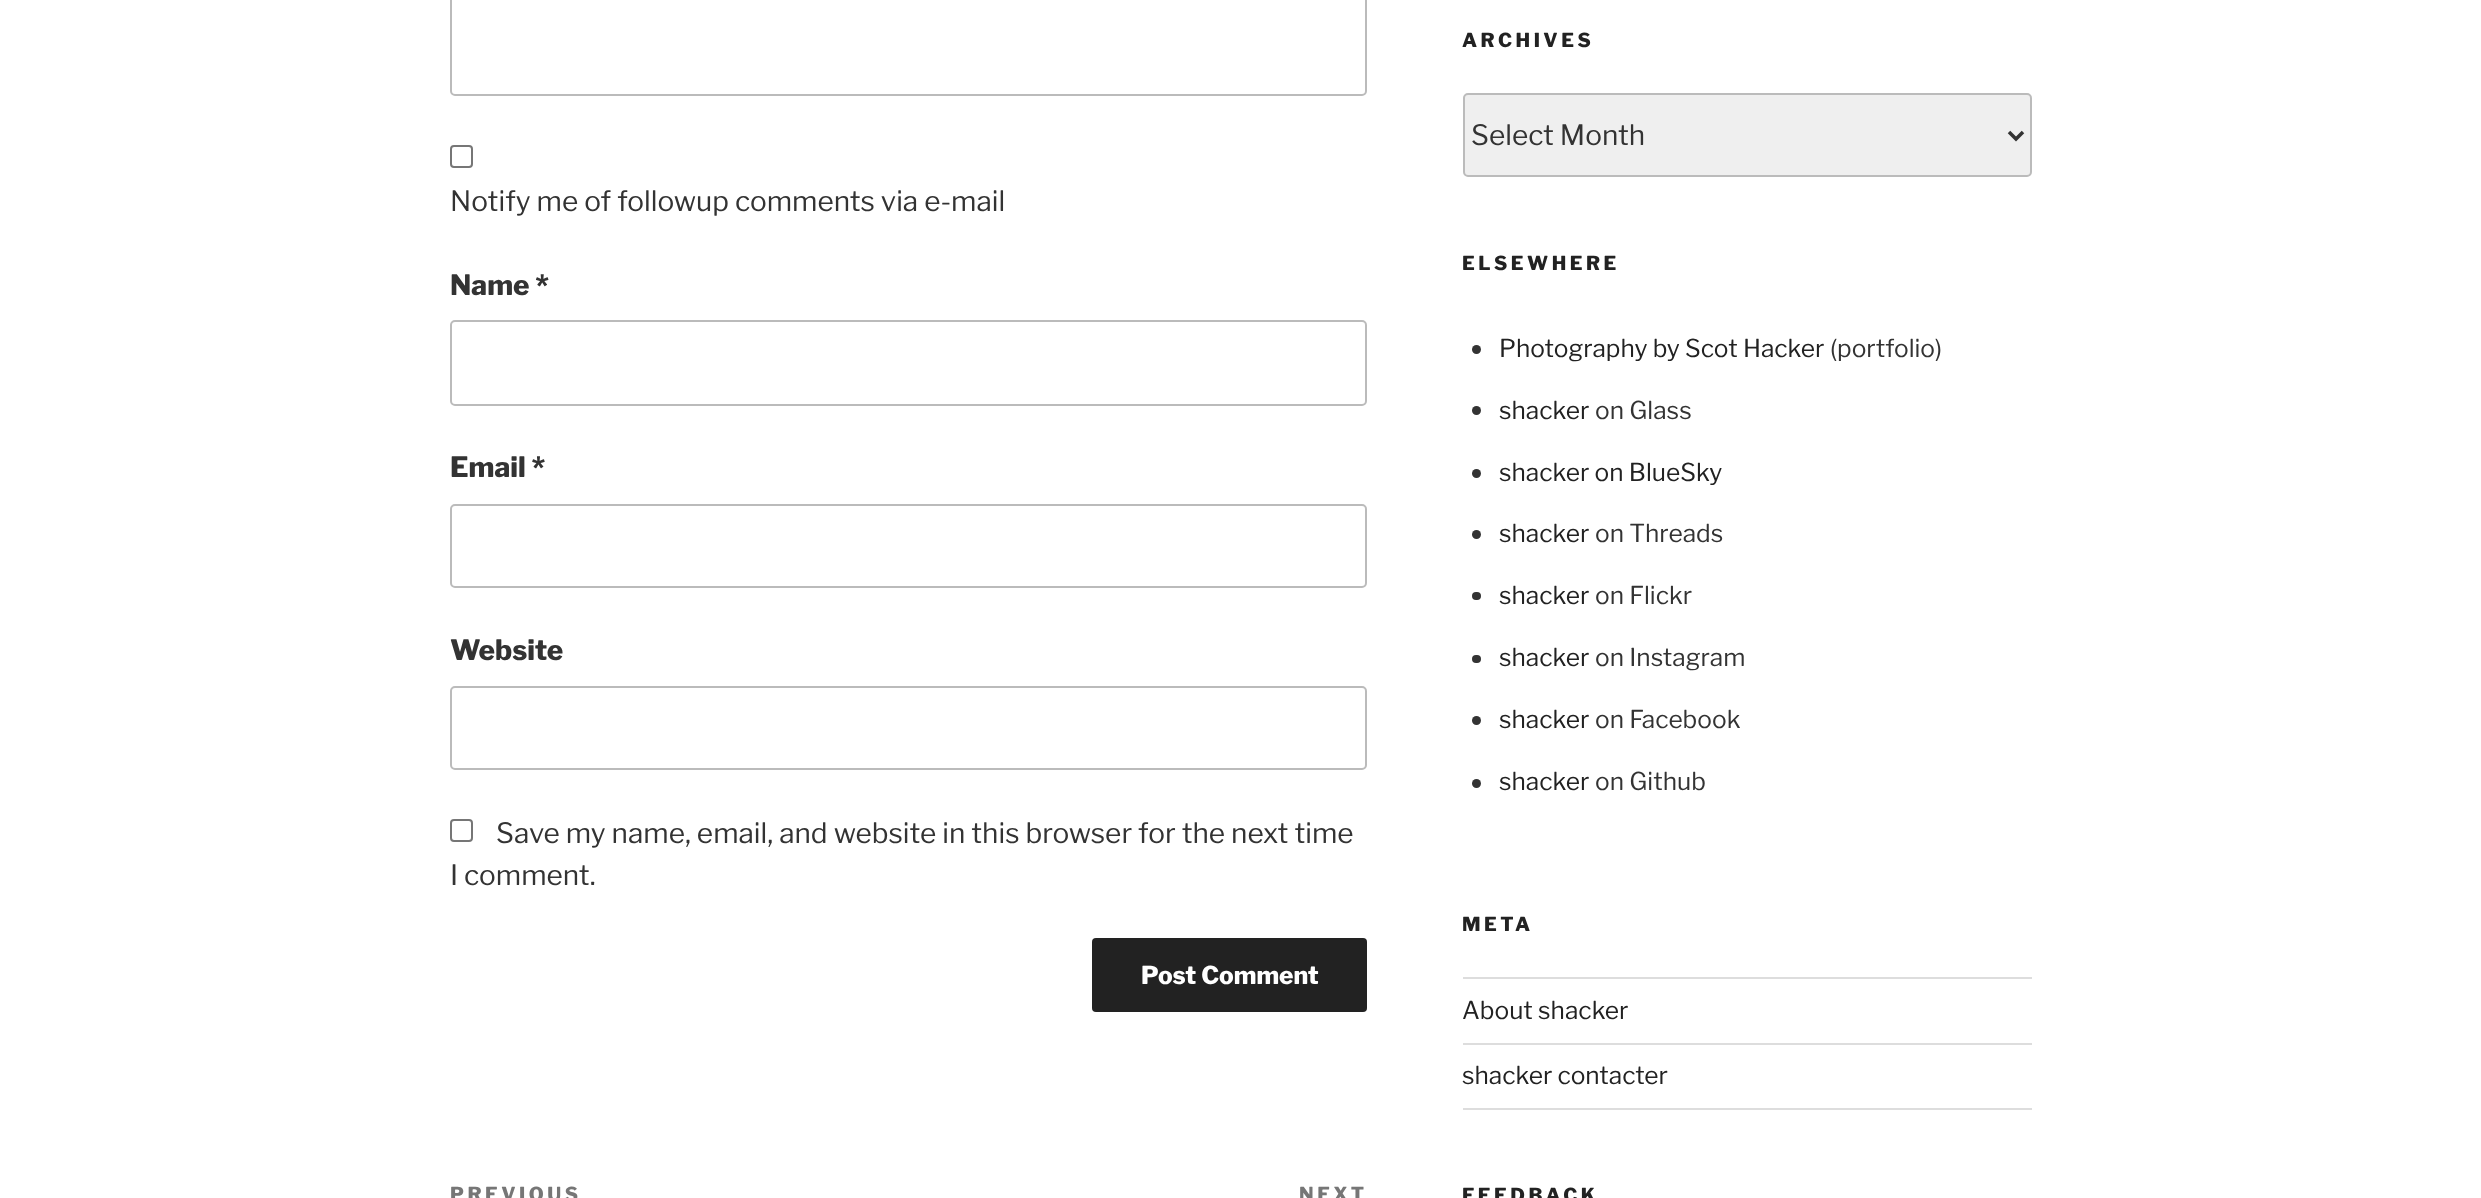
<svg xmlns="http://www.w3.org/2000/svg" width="2481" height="1198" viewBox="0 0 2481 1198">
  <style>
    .t1 { font: 100 28px 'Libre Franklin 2'; fill: #333; }
    .t2 { font: 100 28px Libre Franklin; fill: #333; }
    .t3 { font: 100 24.5px Libre Franklin; fill: #fff; }
    .t4 { font: 100 19.25px Libre Franklin; letter-spacing: 3.5px; fill: #767676; }
    .t5 { font: 100 19.25px Libre Franklin; letter-spacing: 3.5px; fill: #222; }
    .t6 { font: 100 24.5px 'Libre Franklin 2'; fill: #222; }
    .t7 { font: 100 24.5px 'Libre Franklin 2'; fill: #333; }
  </style>
  <rect width="100%" height="100%" fill="#fff"/>
  <rect x="451" y="-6" width="915" height="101" rx="4" fill="none" stroke="#bbb" stroke-width="2"/>
  <rect x="451" y="146" width="21" height="21" rx="3" fill="none" stroke="#767676" stroke-width="2"/>
  <text x="450" y="211" class="t1">Notify me of followup comments via e-mail</text>
  <text x="450" y="295" class="t2">Name *</text>
  <rect x="451" y="321" width="915" height="84" rx="4" fill="none" stroke="#bbb" stroke-width="2"/>
  <text x="450" y="477" class="t2">Email *</text>
  <rect x="451" y="505" width="915" height="82" rx="4" fill="none" stroke="#bbb" stroke-width="2"/>
  <text x="450" y="660" class="t2">Website</text>
  <rect x="451" y="687" width="915" height="82" rx="4" fill="none" stroke="#bbb" stroke-width="2"/>
  <rect x="451" y="820" width="21" height="21" rx="3" fill="none" stroke="#767676" stroke-width="2"/>
  <text x="496" y="843" class="t1">Save my name, email, and website in this browser for the next time</text>
  <text x="450" y="885" class="t1">I comment.</text>
  <rect x="1092" y="938" width="275" height="74" rx="4" fill="#222"/>
  <text x="1141" y="984" class="t3">Post Comment</text>
  <text x="450" y="1201" class="t4">PREVIOUS</text>
  <text x="1299" y="1201" class="t4">NEXT</text>
  <text x="1462" y="47" class="t5">ARCHIVES</text>
  <rect x="1464" y="94" width="567" height="82" rx="4" fill="#efefef" stroke="#bbb" stroke-width="2"/>
  <path d="M2009 132L2016 139L2023 132" fill="none" stroke="#333" stroke-width="3.5"/>
  <text x="1471" y="145" class="t1">Select Month</text>
  <text x="1462" y="270" class="t5">ELSEWHERE</text>
  <circle cx="1476.5" cy="349.5" r="4.5" fill="#333"/>
  <text x="1499" y="357" class="t6">Photography by Scot Hacker</text>
  <text x="1830" y="357" class="t7">(portfolio)</text>
  <circle cx="1476.5" cy="410.5" r="4.5" fill="#333"/>
  <text x="1499" y="419" class="t6">shacker</text>
  <text x="1595" y="419" class="t7">on Glass</text>
  <circle cx="1476.5" cy="473.5" r="4.5" fill="#333"/>
  <text x="1499" y="481" class="t6">shacker on BlueSky</text>
  <circle cx="1476.5" cy="534.5" r="4.5" fill="#333"/>
  <text x="1499" y="542" class="t6">shacker</text>
  <text x="1595" y="542" class="t7">on Threads</text>
  <rect x="1472" y="592" width="9" height="8" rx="4" fill="#333"/>
  <text x="1499" y="604" class="t6">shacker</text>
  <text x="1595" y="604" class="t7">on Flickr</text>
  <rect x="1472" y="655" width="9" height="8" rx="4" fill="#333"/>
  <text x="1499" y="666" class="t6">shacker</text>
  <text x="1595" y="666" class="t7">on Instagram</text>
  <circle cx="1476.5" cy="720.5" r="4.5" fill="#333"/>
  <text x="1499" y="728" class="t6">shacker</text>
  <text x="1595" y="728" class="t7">on Facebook</text>
  <circle cx="1476.5" cy="783.5" r="4.5" fill="#333"/>
  <text x="1499" y="790" class="t6">shacker</text>
  <text x="1595" y="790" class="t7">on Github</text>
  <text x="1462" y="931" class="t5">META</text>
  <rect x="1463" y="977" width="569" height="2" fill="#ddd"/>
  <rect x="1463" y="1043" width="569" height="2" fill="#ddd"/>
  <text x="1462" y="1019" class="t6">About shacker</text>
  <rect x="1463" y="1108" width="569" height="2" fill="#ddd"/>
  <text x="1462" y="1084" class="t6">shacker contacter</text>
  <text x="1462" y="1202" class="t5">FEEDBACK</text>
</svg>
